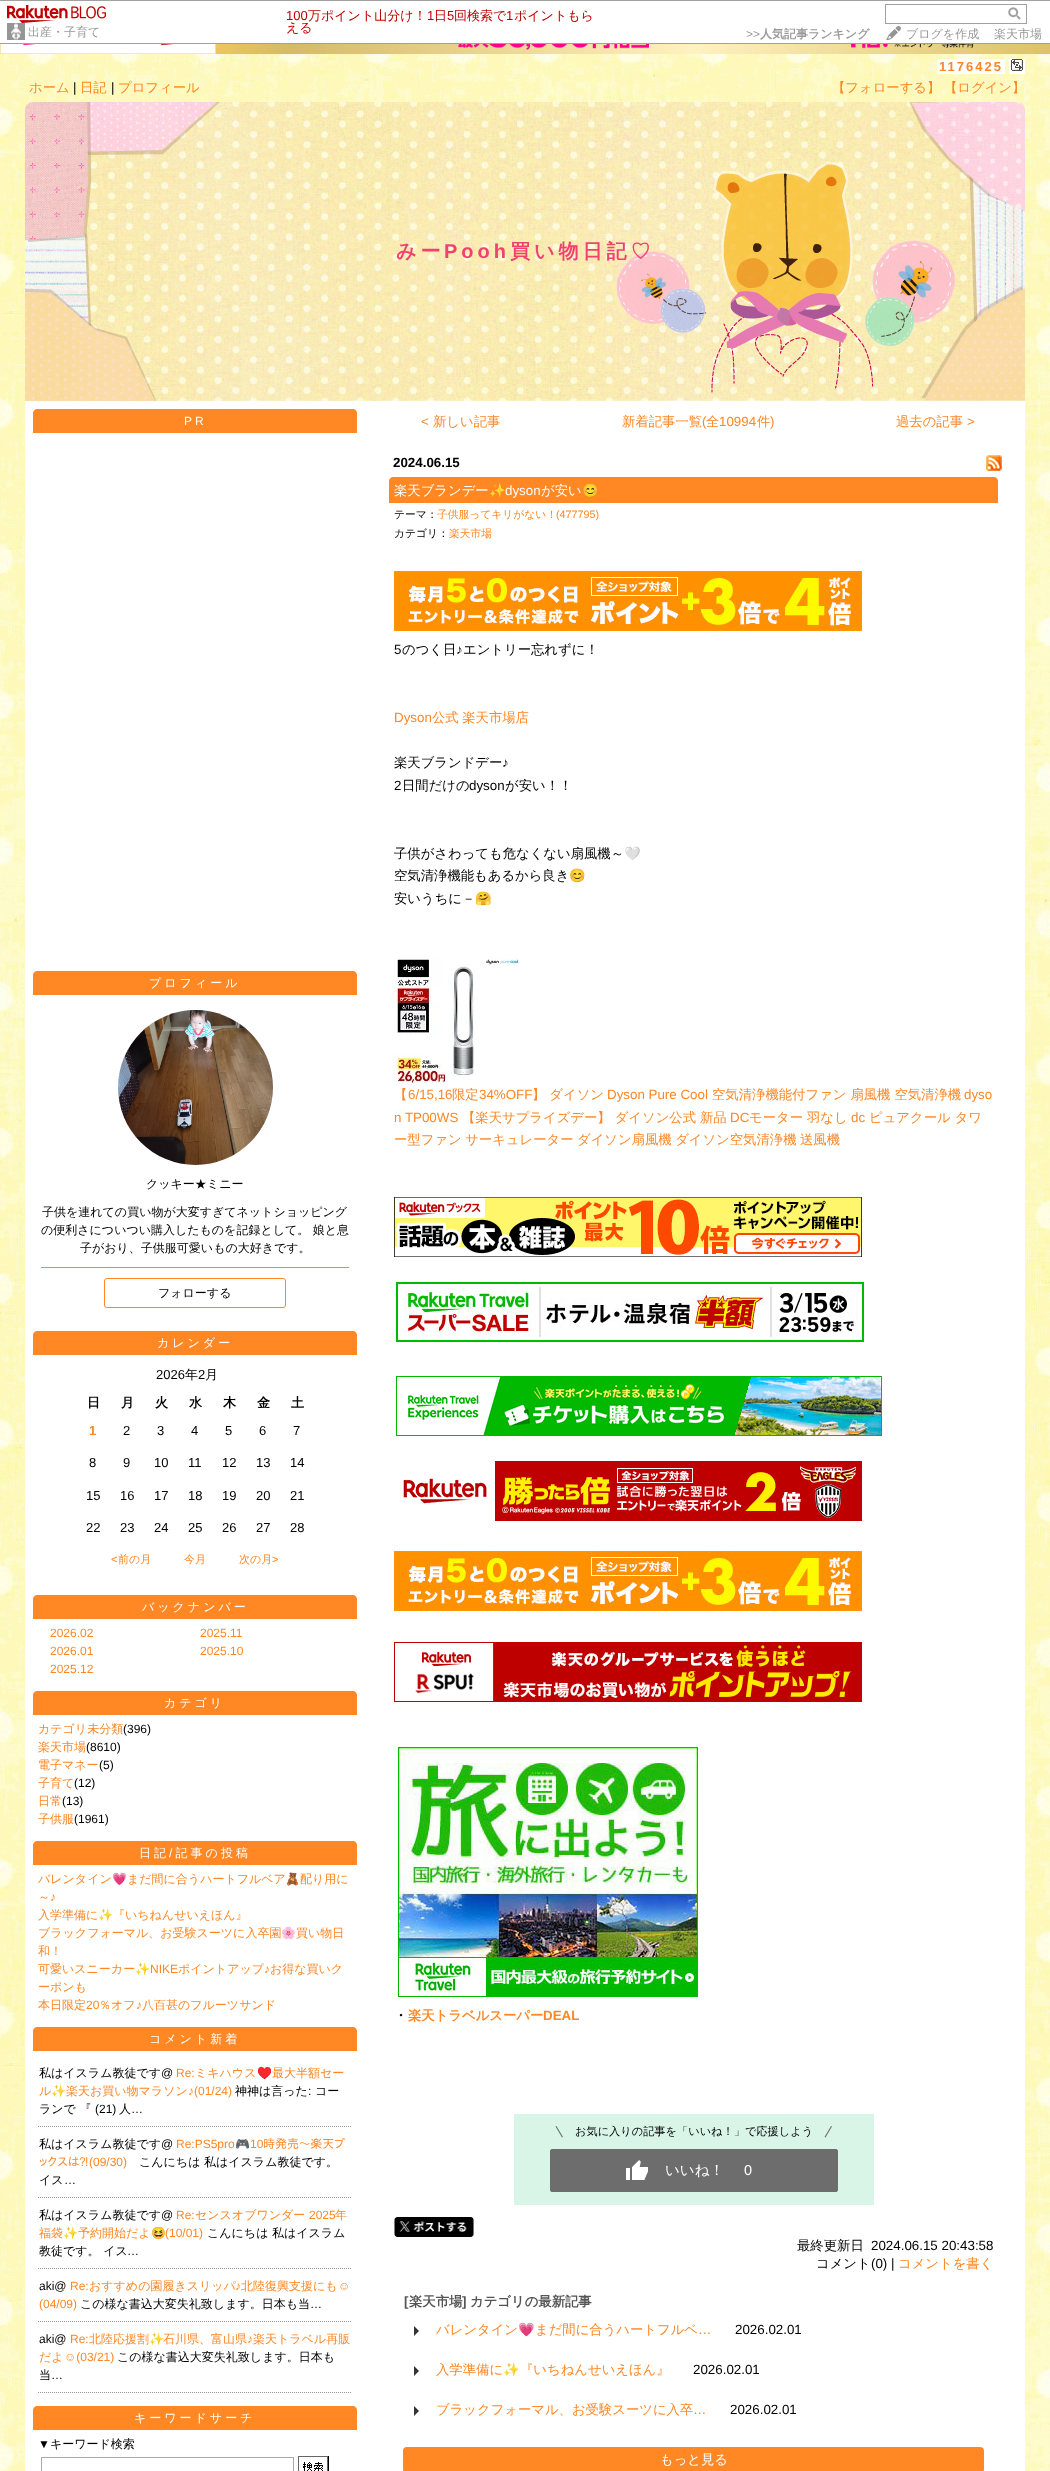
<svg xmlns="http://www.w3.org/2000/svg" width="1050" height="2471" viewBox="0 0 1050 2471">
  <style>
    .t1 { font: 500 12px WenQuanYi Zen Hei; fill: #999; }
    .t2 { font: 13px Liberation Sans; fill: #bf0000; }
    .t3 { font: 500 13px WenQuanYi Zen Hei; fill: #bf0000; }
    .t4 { font: 12px Liberation Sans; fill: #999; }
    .t5 { font: bold 12px WenQuanYi Zen Hei; fill: #999; }
    .t6 { font: bold 13px Liberation Sans; letter-spacing: 2px; fill: #ff8724; }
    .t7 { font: 500 13.35px WenQuanYi Zen Hei; fill: #ff8724; }
    .t8 { font: 13.35px Liberation Sans; fill: #000; }
    .t9 { font: bold 20px WenQuanYi Zen Hei; letter-spacing: 4px; fill: #f14170; }
    .t10 { font: bold 20px Liberation Sans; letter-spacing: 4px; fill: #f14170; }
    .t11 { font: 12px Liberation Sans; letter-spacing: 3px; fill: #fff; }
    .t12 { font: 500 12px WenQuanYi Zen Hei; letter-spacing: 3px; fill: #fff; }
    .t13 { font: 500 12px WenQuanYi Zen Hei; fill: #000; }
    .t14 { font: 13px Liberation Sans; fill: #000; }
    .t15 { font: 500 13px WenQuanYi Zen Hei; fill: #000; }
    .t16 { font: bold 13px WenQuanYi Zen Hei; fill: #000; }
    .t17 { font: bold 13px Liberation Sans; fill: #ff8724; }
    .t18 { font: 11px Liberation Sans; fill: #ff8724; }
    .t19 { font: 500 11px WenQuanYi Zen Hei; fill: #ff8724; }
    .t20 { font: 12px Liberation Sans; fill: #ff8724; }
    .t21 { font: 500 12px WenQuanYi Zen Hei; fill: #ff8724; }
    .t22 { font: 12px Liberation Sans; fill: #000; }
    .t23 { font: 12px Noto Color Emoji; fill: #ff8724; }
    .t24 { font: 12px IPAPGothic; fill: #ff8724; }
    .t25 { font: 13.35px Liberation Sans; fill: #ff8724; }
    .t26 { font: bold 13.35px Liberation Sans; fill: #000; }
    .t27 { font: 500 13.35px WenQuanYi Zen Hei; fill: #fff; }
    .t28 { font: 13.35px Noto Color Emoji; fill: #fff; }
    .t29 { font: 13.35px Liberation Sans; fill: #fff; }
    .t30 { font: 500 10.75px WenQuanYi Zen Hei; fill: #000; }
    .t31 { font: 500 10.75px WenQuanYi Zen Hei; fill: #ff8724; }
    .t32 { font: 10.75px Liberation Sans; fill: #ff8724; }
    .t33 { font: 500 13.35px WenQuanYi Zen Hei; fill: #000; }
    .t34 { font: 13.35px Noto Color Emoji; fill: #000; }
    .t35 { font: bold 13.35px WenQuanYi Zen Hei; fill: #000; }
    .t36 { font: bold 13.35px WenQuanYi Zen Hei; fill: #ff8724; }
    .t37 { font: bold 13.35px Liberation Sans; fill: #ff8724; }
    .t38 { font: 500 11.2px WenQuanYi Zen Hei; fill: #000; }
    .t39 { font: 500 14.5px WenQuanYi Zen Hei; fill: #fff; }
    .t40 { font: 14.5px Liberation Sans; fill: #fff; }
    .t41 { font: bold 13.35px Liberation Sans; fill: #555; }
    .t42 { font: bold 13.35px WenQuanYi Zen Hei; fill: #555; }
    .t43 { font: 13.35px Noto Color Emoji; fill: #ff8724; }
  </style>
  <rect width="100%" height="100%" fill="#fff"/>
  <image x="0" y="54" width="1050" height="2417" href="images/1.png"/>
  <rect x="0" y="0" width="1050" height="1" fill="#a1a1a1"/>
  <rect x="0" y="43" width="1050" height="1" fill="#a1a1a1"/>
  <image x="7" y="5" width="99" height="18" href="images/2.png"/>
  <image x="7" y="23" width="18" height="17" href="images/3.png"/>
  <text x="28" y="36" class="t1">出産・子育て</text>
  <text x="286" y="20" class="t2">100</text>
  <text x="308" y="20" class="t3">万ポイント山分け！</text>
  <text x="427" y="20" class="t2">1</text>
  <text x="434" y="20" class="t3">日</text>
  <text x="447" y="20" class="t2">5</text>
  <text x="454" y="20" class="t3">回検索で</text>
  <text x="506" y="20" class="t2">1</text>
  <text x="514" y="20" class="t3">ポイントもら</text>
  <text x="286" y="32" class="t3">える</text>
  <rect x="885.5" y="4.5" width="141" height="19" fill="none" stroke="#a1a1a1"/>
  <image x="1008" y="7" width="13" height="13" href="images/4.png"/>
  <text x="746" y="38" class="t4">&gt;&gt;</text>
  <text x="760" y="38" class="t5">人気記事ランキング</text>
  <image x="886" y="26" width="15" height="14" href="images/5.png"/>
  <text x="906" y="38" class="t1">ブログを作成</text>
  <text x="994" y="38" class="t1">楽天市場</text>
  <image x="0" y="44" width="1050" height="10" href="images/6.png"/>
  <rect x="1009" y="59" width="16" height="15" fill="#fff"/>
  <rect x="937" y="59" width="68" height="15" fill="#fff"/>
  <text x="939" y="71" class="t6">1176425</text>
  <image x="1011" y="59" width="12" height="12" href="images/7.png"/>
  <text x="29" y="92" class="t7">ホーム</text>
  <text x="73" y="92" class="t8">|</text>
  <text x="80" y="92" class="t7">日記</text>
  <text x="111" y="92" class="t8">|</text>
  <text x="118" y="92" class="t7">プロフィール</text>
  <text x="832" y="92" class="t7">【フォローする】</text>
  <text x="944" y="92" class="t7">【ログイン】</text>
  <image x="25" y="102" width="1000" height="299" href="images/8.png"/>
  <text x="396" y="258" class="t9">みー</text>
  <text x="444" y="258" class="t10">Pooh</text>
  <text x="510" y="258" class="t9">買い物日記♡</text>
  <rect x="25" y="401" width="1000" height="2070" fill="#fff"/>
  <path d="M37 409H353C355 409 357 411 357 413V433H33V413C33 411 35 409 37 409Z" fill="#ff8724"/>
  <text x="184" y="425" class="t11">PR</text>
  <path d="M37 971H353C355 971 357 973 357 975V995H33V975C33 973 35 971 37 971Z" fill="#ff8724"/>
  <text x="149" y="987" class="t12">プロフィール</text>
  <image x="118" y="1010" width="155" height="155" href="images/9.png"/>
  <text x="146" y="1188" class="t13">クッキー★ミニー</text>
  <rect x="41" y="1267" width="308" height="1" fill="#ff8724"/>
  <text x="42" y="1216" class="t13">子供を連れての買い物が大変すぎてネットショッピング</text>
  <text x="41" y="1234" class="t13">の便利さについつい購入したものを記録として。 娘と息</text>
  <text x="80" y="1252" class="t13">子がおり、子供服可愛いもの大好きです。</text>
  <rect x="104.5" y="1278.5" width="181" height="29" rx="2.5" fill="none" stroke="#ff8724"/>
  <text x="158" y="1297" class="t13">フォローする</text>
  <path d="M37 1331H353C355 1331 357 1333 357 1335V1355H33V1335C33 1333 35 1331 37 1331Z" fill="#ff8724"/>
  <text x="157" y="1347" class="t12">カレンダー</text>
  <text x="156" y="1379" class="t14">2026</text>
  <text x="185" y="1379" class="t15">年</text>
  <text x="198" y="1379" class="t14">2</text>
  <text x="205" y="1379" class="t15">月</text>
  <text x="87" y="1407" class="t16">日</text>
  <text x="121" y="1407" class="t16">月</text>
  <text x="155" y="1407" class="t16">火</text>
  <text x="189" y="1407" class="t16">水</text>
  <text x="223" y="1407" class="t16">木</text>
  <text x="257" y="1407" class="t16">金</text>
  <text x="291" y="1407" class="t16">土</text>
  <text x="89" y="1435" class="t17">1</text>
  <text x="123" y="1435" class="t14">2</text>
  <text x="157" y="1435" class="t14">3</text>
  <text x="191" y="1435" class="t14">4</text>
  <text x="225" y="1435" class="t14">5</text>
  <text x="259" y="1435" class="t14">6</text>
  <text x="293" y="1435" class="t14">7</text>
  <text x="89" y="1467" class="t14">8</text>
  <text x="123" y="1467" class="t14">9</text>
  <text x="154" y="1467" class="t14">10</text>
  <text x="188" y="1467" class="t14">11</text>
  <text x="222" y="1467" class="t14">12</text>
  <text x="256" y="1467" class="t14">13</text>
  <text x="290" y="1467" class="t14">14</text>
  <text x="86" y="1500" class="t14">15</text>
  <text x="120" y="1500" class="t14">16</text>
  <text x="154" y="1500" class="t14">17</text>
  <text x="188" y="1500" class="t14">18</text>
  <text x="222" y="1500" class="t14">19</text>
  <text x="256" y="1500" class="t14">20</text>
  <text x="290" y="1500" class="t14">21</text>
  <text x="86" y="1532" class="t14">22</text>
  <text x="120" y="1532" class="t14">23</text>
  <text x="154" y="1532" class="t14">24</text>
  <text x="188" y="1532" class="t14">25</text>
  <text x="222" y="1532" class="t14">26</text>
  <text x="256" y="1532" class="t14">27</text>
  <text x="290" y="1532" class="t14">28</text>
  <text x="111" y="1563" class="t18">&lt;</text>
  <text x="118" y="1563" class="t19">前の月</text>
  <text x="184" y="1563" class="t19">今月</text>
  <text x="239" y="1563" class="t19">次の月</text>
  <text x="272" y="1563" class="t18">&gt;</text>
  <path d="M37 1595H353C355 1595 357 1597 357 1599V1619H33V1599C33 1597 35 1595 37 1595Z" fill="#ff8724"/>
  <text x="142" y="1611" class="t12">バックナンバー</text>
  <text x="50" y="1637" class="t20">2026.02</text>
  <text x="50" y="1655" class="t20">2026.01</text>
  <text x="50" y="1673" class="t20">2025.12</text>
  <text x="200" y="1637" class="t20">2025.11</text>
  <text x="200" y="1655" class="t20">2025.10</text>
  <path d="M37 1691H353C355 1691 357 1693 357 1695V1715H33V1695C33 1693 35 1691 37 1691Z" fill="#ff8724"/>
  <text x="164" y="1707" class="t12">カテゴリ</text>
  <text x="38" y="1733" class="t21">カテゴリ未分類</text>
  <text x="123" y="1733" class="t22">(396)</text>
  <text x="38" y="1751" class="t21">楽天市場</text>
  <text x="86" y="1751" class="t22">(8610)</text>
  <text x="38" y="1769" class="t21">電子マネー</text>
  <text x="99" y="1769" class="t22">(5)</text>
  <text x="38" y="1787" class="t21">子育て</text>
  <text x="74" y="1787" class="t22">(12)</text>
  <text x="38" y="1805" class="t21">日常</text>
  <text x="62" y="1805" class="t22">(13)</text>
  <text x="38" y="1823" class="t21">子供服</text>
  <text x="74" y="1823" class="t22">(1961)</text>
  <path d="M37 1841H353C355 1841 357 1843 357 1845V1865H33V1845C33 1843 35 1841 37 1841Z" fill="#ff8724"/>
  <text x="139" y="1857" class="t12">日記 記事の投稿</text>
  <text x="169" y="1857" class="t11">/</text>
  <text x="38" y="1883" class="t21">バレンタイン</text>
  <text x="112" y="1883" class="t23">💗</text>
  <text x="127" y="1883" class="t21">まだ間に合うハートフルベア</text>
  <text x="285" y="1883" class="t23">🧸</text>
  <text x="300" y="1883" class="t21">配り用に</text>
  <text x="38" y="1901" class="t21">～</text>
  <text x="50" y="1901" class="t20">♪</text>
  <text x="38" y="1919" class="t21">入学準備に</text>
  <text x="98" y="1919" class="t23">✨</text>
  <text x="113" y="1919" class="t21">『いちねんせいえほん』</text>
  <text x="38" y="1937" class="t21">ブラックフォーマル、お受験スーツに入卒園</text>
  <text x="281" y="1937" class="t23">🌸</text>
  <text x="296" y="1937" class="t21">買い物日</text>
  <text x="38" y="1955" class="t21">和！</text>
  <text x="38" y="1973" class="t21">可愛いスニーカー</text>
  <text x="135" y="1973" class="t23">✨</text>
  <text x="150" y="1973" class="t20">NIKE</text>
  <text x="178" y="1973" class="t21">ポイントアップ</text>
  <text x="264" y="1973" class="t20">♪</text>
  <text x="270" y="1973" class="t21">お得な買いク</text>
  <text x="38" y="1991" class="t21">ーポンも</text>
  <text x="38" y="2009" class="t21">本日限定</text>
  <text x="86" y="2009" class="t20">20</text>
  <text x="99" y="2009" class="t21">％オフ</text>
  <text x="136" y="2009" class="t20">♪</text>
  <text x="142" y="2009" class="t21">八百甚のフルーツサンド</text>
  <path d="M37 2027H353C355 2027 357 2029 357 2031V2051H33V2031C33 2029 35 2027 37 2027Z" fill="#ff8724"/>
  <text x="149" y="2043" class="t12">コメント新着</text>
  <path d="M38 2126.5H352" fill="none" stroke="#999" stroke-dasharray="1 1"/>
  <text x="39" y="2077" class="t13">私はイスラム教徒です</text>
  <text x="161" y="2077" class="t22">@</text>
  <text x="176" y="2077" class="t20">Re:</text>
  <text x="195" y="2077" class="t21">ミキハウス</text>
  <text x="257" y="2077" class="t23">♥️</text>
  <text x="272" y="2077" class="t21">最大半額セー</text>
  <text x="39" y="2095" class="t21">ル</text>
  <text x="51" y="2095" class="t23">✨</text>
  <text x="66" y="2095" class="t21">楽天お買い物マラソン</text>
  <text x="188" y="2095" class="t20">♪(01/24)</text>
  <text x="235" y="2095" class="t13">神神は言った</text>
  <text x="308" y="2095" class="t22">:</text>
  <text x="315" y="2095" class="t13">コー</text>
  <text x="39" y="2113" class="t13">ランで 『</text>
  <text x="95" y="2113" class="t22">(21)</text>
  <text x="119" y="2113" class="t13">人</text>
  <text x="131" y="2113" class="t22">…</text>
  <path d="M38 2197.5H352" fill="none" stroke="#999" stroke-dasharray="1 1"/>
  <text x="39" y="2148" class="t13">私はイスラム教徒です</text>
  <text x="161" y="2148" class="t22">@</text>
  <text x="176" y="2148" class="t20">Re:PS5pro</text>
  <text x="235" y="2148" class="t23">🎮</text>
  <text x="250" y="2148" class="t20">10</text>
  <text x="263" y="2148" class="t24">時発売～楽天ブ</text>
  <text x="39" y="2166" class="t24">ックスは⁈</text>
  <text x="89" y="2166" class="t20">(09/30)</text>
  <text x="139" y="2166" class="t13">こんにちは 私はイスラム教徒です。</text>
  <text x="39" y="2184" class="t13">イス</text>
  <text x="64" y="2184" class="t22">…</text>
  <path d="M38 2268.5H352" fill="none" stroke="#999" stroke-dasharray="1 1"/>
  <text x="39" y="2219" class="t13">私はイスラム教徒です</text>
  <text x="161" y="2219" class="t22">@</text>
  <text x="176" y="2219" class="t20">Re:</text>
  <text x="195" y="2219" class="t21">センスオブワンダー</text>
  <text x="309" y="2219" class="t20">2025</text>
  <text x="335" y="2219" class="t21">年</text>
  <text x="39" y="2237" class="t21">福袋</text>
  <text x="63" y="2237" class="t23">✨</text>
  <text x="78" y="2237" class="t21">予約開始だよ</text>
  <text x="151" y="2237" class="t23">😆</text>
  <text x="165" y="2237" class="t20">(10/01)</text>
  <text x="207" y="2237" class="t13">こんにちは 私はイスラム</text>
  <text x="39" y="2255" class="t13">教徒です。 イス</text>
  <text x="127" y="2255" class="t22">…</text>
  <path d="M38 2321.5H352" fill="none" stroke="#999" stroke-dasharray="1 1"/>
  <text x="39" y="2290" class="t22">aki@</text>
  <text x="70" y="2290" class="t20">Re:</text>
  <text x="89" y="2290" class="t21">おすすめの園履きスリッパ</text>
  <text x="235" y="2290" class="t20">♪</text>
  <text x="241" y="2290" class="t21">北陸復興支援にも</text>
  <text x="338" y="2290" class="t20">☺</text>
  <text x="39" y="2308" class="t20">(04/09)</text>
  <text x="80" y="2308" class="t13">この様な書込大変失礼致します。日本も当</text>
  <text x="310" y="2308" class="t22">…</text>
  <path d="M38 2392.5H352" fill="none" stroke="#999" stroke-dasharray="1 1"/>
  <text x="39" y="2343" class="t22">aki@</text>
  <text x="70" y="2343" class="t20">Re:</text>
  <text x="89" y="2343" class="t21">北陸応援割</text>
  <text x="149" y="2343" class="t23">✨</text>
  <text x="163" y="2343" class="t21">石川県、富山県</text>
  <text x="247" y="2343" class="t20">♪</text>
  <text x="253" y="2343" class="t21">楽天トラベル再販</text>
  <text x="39" y="2361" class="t21">だよ</text>
  <text x="64" y="2361" class="t20">☺(03/21)</text>
  <text x="117" y="2361" class="t13">この様な書込大変失礼致します。日本も</text>
  <text x="39" y="2379" class="t13">当</text>
  <text x="51" y="2379" class="t22">…</text>
  <path d="M37 2406H353C355 2406 357 2408 357 2410V2430H33V2410C33 2408 35 2406 37 2406Z" fill="#ff8724"/>
  <text x="134" y="2422" class="t12">キーワードサーチ</text>
  <text x="38" y="2448" class="t22">▼</text>
  <text x="50" y="2448" class="t13">キーワード検索</text>
  <rect x="41.5" y="2457.5" width="252" height="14" fill="none" stroke="#aaa"/>
  <image x="298" y="2456" width="31" height="15" href="images/10.png"/>
  <text x="421" y="426" class="t25">&lt;</text>
  <text x="433" y="426" class="t7">新しい記事</text>
  <text x="622" y="426" class="t7">新着記事一覧</text>
  <text x="702" y="426" class="t25">(</text>
  <text x="706" y="426" class="t7">全</text>
  <text x="719" y="426" class="t25">10994</text>
  <text x="757" y="426" class="t7">件</text>
  <text x="770" y="426" class="t25">)</text>
  <text x="896" y="426" class="t7">過去の記事</text>
  <text x="967" y="426" class="t25">&gt;</text>
  <text x="393" y="467" class="t26">2024.06.15</text>
  <image x="986" y="455" width="16" height="16" href="images/11.png"/>
  <path d="M393 477H994C996 477 998 479 998 481V503H389V481C389 479 391 477 393 477Z" fill="#ff8724"/>
  <text x="394" y="495" class="t27">楽天ブランデー</text>
  <text x="489" y="495" class="t28">✨</text>
  <text x="505" y="495" class="t29">dyson</text>
  <text x="541" y="495" class="t27">が安い</text>
  <text x="582" y="495" class="t28">😊</text>
  <text x="394" y="518" class="t30">テーマ：</text>
  <text x="437" y="518" class="t31">子供服ってキリがない！</text>
  <text x="556" y="518" class="t32">(477795)</text>
  <text x="394" y="537" class="t30">カテゴリ：</text>
  <text x="449" y="537" class="t31">楽天市場</text>
  <image x="394" y="571" width="468" height="60" href="images/12.png"/>
  <text x="394" y="654" class="t8">5</text>
  <text x="402" y="654" class="t33">のつく日</text>
  <text x="456" y="654" class="t8">♪</text>
  <text x="463" y="654" class="t33">エントリー忘れずに！</text>
  <text x="394" y="722" class="t25">Dyson</text>
  <text x="432" y="722" word-spacing="-0.5" class="t7">公式 楽天市場店</text>
  <text x="394" y="767" class="t33">楽天ブランドデー</text>
  <text x="502" y="767" class="t8">♪</text>
  <text x="394" y="790" class="t8">2</text>
  <text x="402" y="790" class="t33">日間だけの</text>
  <text x="469" y="790" class="t8">dyson</text>
  <text x="505" y="790" class="t33">が安い！！</text>
  <text x="394" y="858" class="t33">子供がさわっても危なくない扇風機～</text>
  <text x="624" y="858" class="t34">🤍</text>
  <text x="394" y="880" class="t33">空気清浄機能もあるから良き</text>
  <text x="569" y="880" class="t34">😊</text>
  <text x="394" y="903" class="t33">安いうちに－</text>
  <text x="475" y="903" class="t34">🤗</text>
  <image x="394" y="958" width="125" height="126" href="images/13.png"/>
  <text x="394" y="1099" class="t7">【</text>
  <text x="408" y="1099" class="t25">6/15,16</text>
  <text x="452" y="1099" class="t7">限定</text>
  <text x="479" y="1099" class="t25">34%OFF</text>
  <text x="532" y="1099" class="t7">】 ダイソン</text>
  <text x="607" y="1099" class="t25">Dyson Pure Cool</text>
  <text x="712" y="1099" class="t7">空気清浄機能付ファン 扇風機 空気清浄機</text>
  <text x="964" y="1099" class="t25">dyso</text>
  <text x="394" y="1122" class="t25">n TP00WS</text>
  <text x="462" y="1122" class="t7">【楽天サプライズデー】 ダイソン公式 新品</text>
  <text x="730" y="1122" class="t25">DC</text>
  <text x="749" y="1122" class="t7">モーター 羽なし</text>
  <text x="851" y="1122" class="t25">dc</text>
  <text x="869" y="1122" class="t7">ピュアクール タワ</text>
  <text x="394" y="1144" word-spacing="-0.5" class="t7">ー型ファン サーキュレーター ダイソン扇風機 ダイソン空気清浄機 送風機</text>
  <image x="394" y="1197" width="468" height="60" href="images/14.png"/>
  <image x="396" y="1282" width="468" height="60" href="images/15.png"/>
  <image x="396" y="1376" width="486" height="60" href="images/16.png"/>
  <image x="403" y="1461" width="459" height="60" href="images/17.png"/>
  <image x="394" y="1551" width="468" height="60" href="images/12.png"/>
  <image x="394" y="1642" width="468" height="60" href="images/18.png"/>
  <image x="398" y="1747" width="300" height="250" href="images/19.png"/>
  <text x="394" y="2020" class="t35">・</text>
  <text x="408" y="2020" class="t36">楽天トラベルスーパー</text>
  <text x="543" y="2020" class="t37">DEAL</text>
  <rect x="514" y="2114" width="360" height="91" fill="#d9f5e8"/>
  <path d="M555.5 2126.5L556.5 2126L563 2137L562 2137.5Z" fill="#707070"/>
  <text x="575" y="2135" class="t38">お気に入りの記事を「いいね！」で応援しよう</text>
  <path d="M831 2126L832 2126.5L825.5 2137.5L824.5 2137Z" fill="#707070"/>
  <rect x="550.5" y="2149.5" width="287" height="42" rx="1.5" fill="#6d6d6d" stroke="#6d6d6d"/>
  <image x="626" y="2160" width="22" height="20" href="images/20.png"/>
  <text x="665" y="2175" class="t39">いいね！</text>
  <text x="744" y="2175" class="t40">0</text>
  <image x="394" y="2217" width="80" height="20" href="images/21.png"/>
  <text x="797" y="2250" class="t33">最終更新日</text>
  <text x="871" y="2250" class="t8">2024.06.15 20:43:58</text>
  <text x="816" y="2268" class="t33">コメント</text>
  <text x="871" y="2268" class="t8">(0) |</text>
  <text x="898" y="2268" class="t7">コメントを書く</text>
  <text x="404" y="2306" class="t41">[</text>
  <text x="409" y="2306" class="t42">楽天市場</text>
  <text x="462" y="2306" class="t41">]</text>
  <text x="470" y="2306" class="t42">カテゴリの最新記事</text>
  <path d="M414 2336V2326L419 2331Z" fill="#333"/>
  <text x="436" y="2334" class="t7">バレンタイン</text>
  <text x="518" y="2334" class="t43">💗</text>
  <text x="535" y="2334" class="t7">まだ間に合うハートフルベ</text>
  <text x="698" y="2334" class="t25">…</text>
  <text x="735" y="2334" class="t8">2026.02.01</text>
  <path d="M414 2376V2366L419 2371Z" fill="#333"/>
  <text x="436" y="2374" class="t7">入学準備に</text>
  <text x="503" y="2374" class="t43">✨</text>
  <text x="520" y="2374" class="t7">『いちねんせいえほん』</text>
  <text x="693" y="2374" class="t8">2026.02.01</text>
  <path d="M414 2416V2406L419 2411Z" fill="#333"/>
  <text x="436" y="2414" class="t7">ブラックフォーマル、お受験スーツに入卒</text>
  <text x="693" y="2414" class="t25">…</text>
  <text x="730" y="2414" class="t8">2026.02.01</text>
  <rect x="403" y="2447" width="581" height="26" rx="4" fill="#ff8724"/>
  <text x="660" y="2464" class="t27">もっと見る</text>
</svg>
